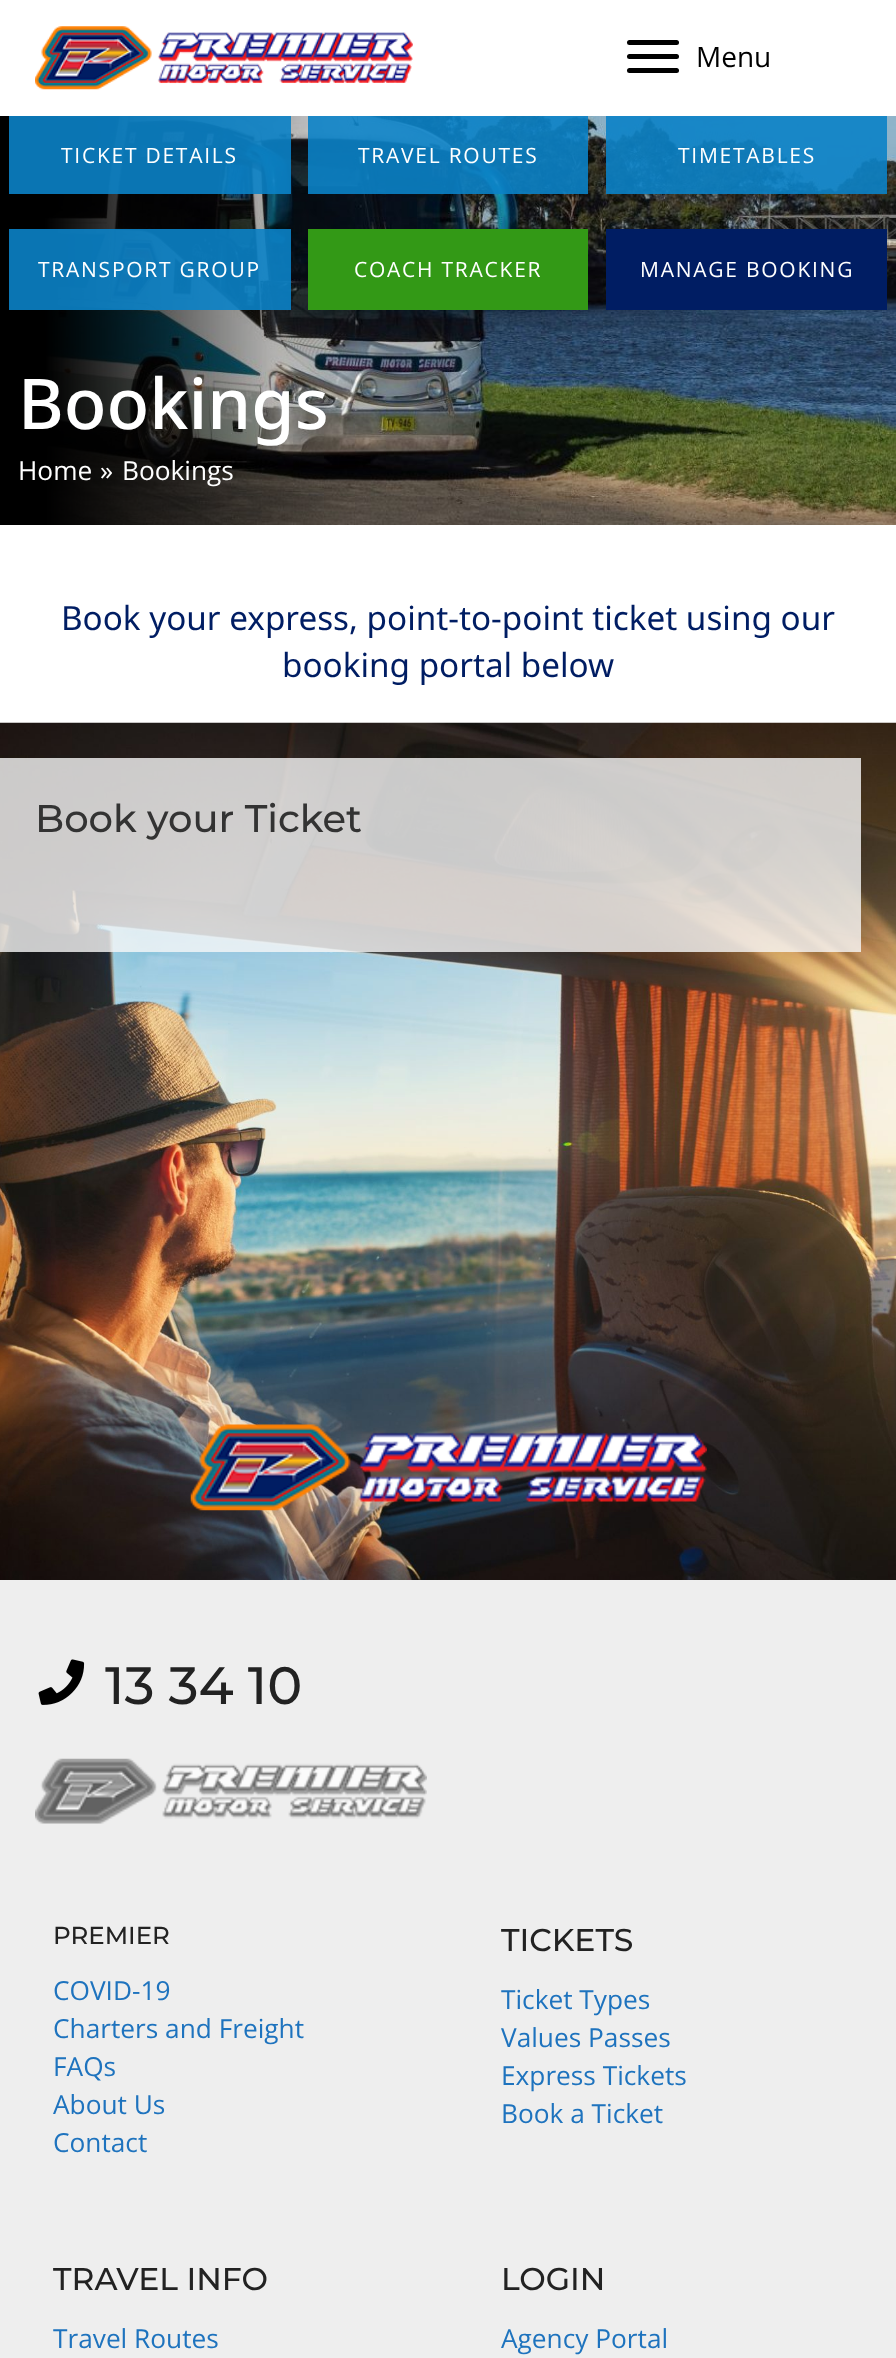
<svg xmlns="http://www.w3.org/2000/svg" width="896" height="2358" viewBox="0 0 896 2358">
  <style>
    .t1 { font: 28px Open Sans; fill: #000; }
    .t2 { font: 21px Open Sans; letter-spacing: 1.75px; fill: #fff; }
    .t3 { font: 500 70px Noto Sans; fill: #fff; }
    .t4 { font: 26.25px Open Sans; fill: #fff; }
    .t5 { font: 33.25px Noto Sans; fill: #001d63; }
    .t6 { font: 100 38.5px Montserrat; fill: #333; }
    .t7 { font: 100 52.5px Montserrat; fill: #222; }
    .t8 { font: 100 24.5px Montserrat; fill: #222; }
    .t9 { font: 26.25px Open Sans; fill: #1e73be; }
    .t10 { font: 100 31.5px Montserrat; fill: #222; }
  </style>
  <rect width="100%" height="100%" fill="#fff"/>
  <image x="35" y="26" width="378" height="64" href="images/1.png"/>
  <rect x="627" y="54" width="52" height="5" rx="2.5" fill="#000"/>
  <rect x="627" y="40" width="52" height="5" rx="2.5" fill="#000"/>
  <rect x="627" y="68" width="52" height="5" rx="2.5" fill="#000"/>
  <text x="696" y="67" class="t1">Menu</text>
  <image x="0" y="116" width="896" height="409" href="images/2.png"/>
  <rect x="9" y="116" width="282" height="78" fill="#0b82c6e6"/>
  <text x="61" y="163" class="t2">TICKET DETAILS</text>
  <rect x="308" y="116" width="280" height="78" fill="#0b82c6e6"/>
  <text x="358" y="163" class="t2">TRAVEL ROUTES</text>
  <rect x="606" y="116" width="281" height="78" fill="#0b82c6e6"/>
  <text x="678" y="163" class="t2">TIMETABLES</text>
  <rect x="9" y="229" width="282" height="81" fill="#0b82c6e6"/>
  <text x="38" y="277" class="t2">TRANSPORT GROUP</text>
  <rect x="308" y="229" width="280" height="81" fill="#339916"/>
  <text x="354" y="277" class="t2">COACH TRACKER</text>
  <rect x="606" y="229" width="281" height="81" fill="#001d63"/>
  <text x="640" y="277" class="t2">MANAGE BOOKING</text>
  <text x="18" y="429" class="t3">Bookings</text>
  <text x="18" y="480" class="t4">Home</text>
  <text x="100" y="480" class="t4">»</text>
  <text x="122" y="480" class="t4">Bookings</text>
  <text x="61" y="630" class="t5">Book your express, point-to-point ticket using our</text>
  <text x="282" y="677" class="t5">booking portal below</text>
  <image x="0" y="722" width="896" height="858" href="images/3.png"/>
  <rect x="0" y="758" width="861" height="194" fill="#f7f7f7cc"/>
  <text x="35" y="832" class="t6">Book your Ticket</text>
  <image x="190" y="1424" width="517" height="87" href="images/4.png"/>
  <rect x="0" y="1580" width="896" height="778" fill="#eee"/>
  <image x="38" y="1659" width="47" height="46" href="images/5.png"/>
  <text x="105" y="1704" class="t7">13 34 10</text>
  <image x="35" y="1758" width="392" height="66" href="images/6.png"/>
  <text x="53" y="1944" class="t8">PREMIER</text>
  <text x="53" y="2000" class="t9">COVID-19</text>
  <text x="53" y="2038" class="t9">Charters and Freight</text>
  <text x="53" y="2076" class="t9">FAQs</text>
  <text x="53" y="2114" class="t9">About Us</text>
  <text x="53" y="2152" class="t9">Contact</text>
  <text x="501" y="1951" class="t10">TICKETS</text>
  <text x="501" y="2009" class="t9">Ticket Types</text>
  <text x="501" y="2047" class="t9">Values Passes</text>
  <text x="501" y="2085" class="t9">Express Tickets</text>
  <text x="501" y="2123" class="t9">Book a Ticket</text>
  <text x="53" y="2290" class="t10">TRAVEL INFO</text>
  <text x="53" y="2348" class="t9">Travel Routes</text>
  <text x="501" y="2290" class="t10">LOGIN</text>
  <text x="501" y="2348" class="t9">Agency Portal</text>
</svg>
